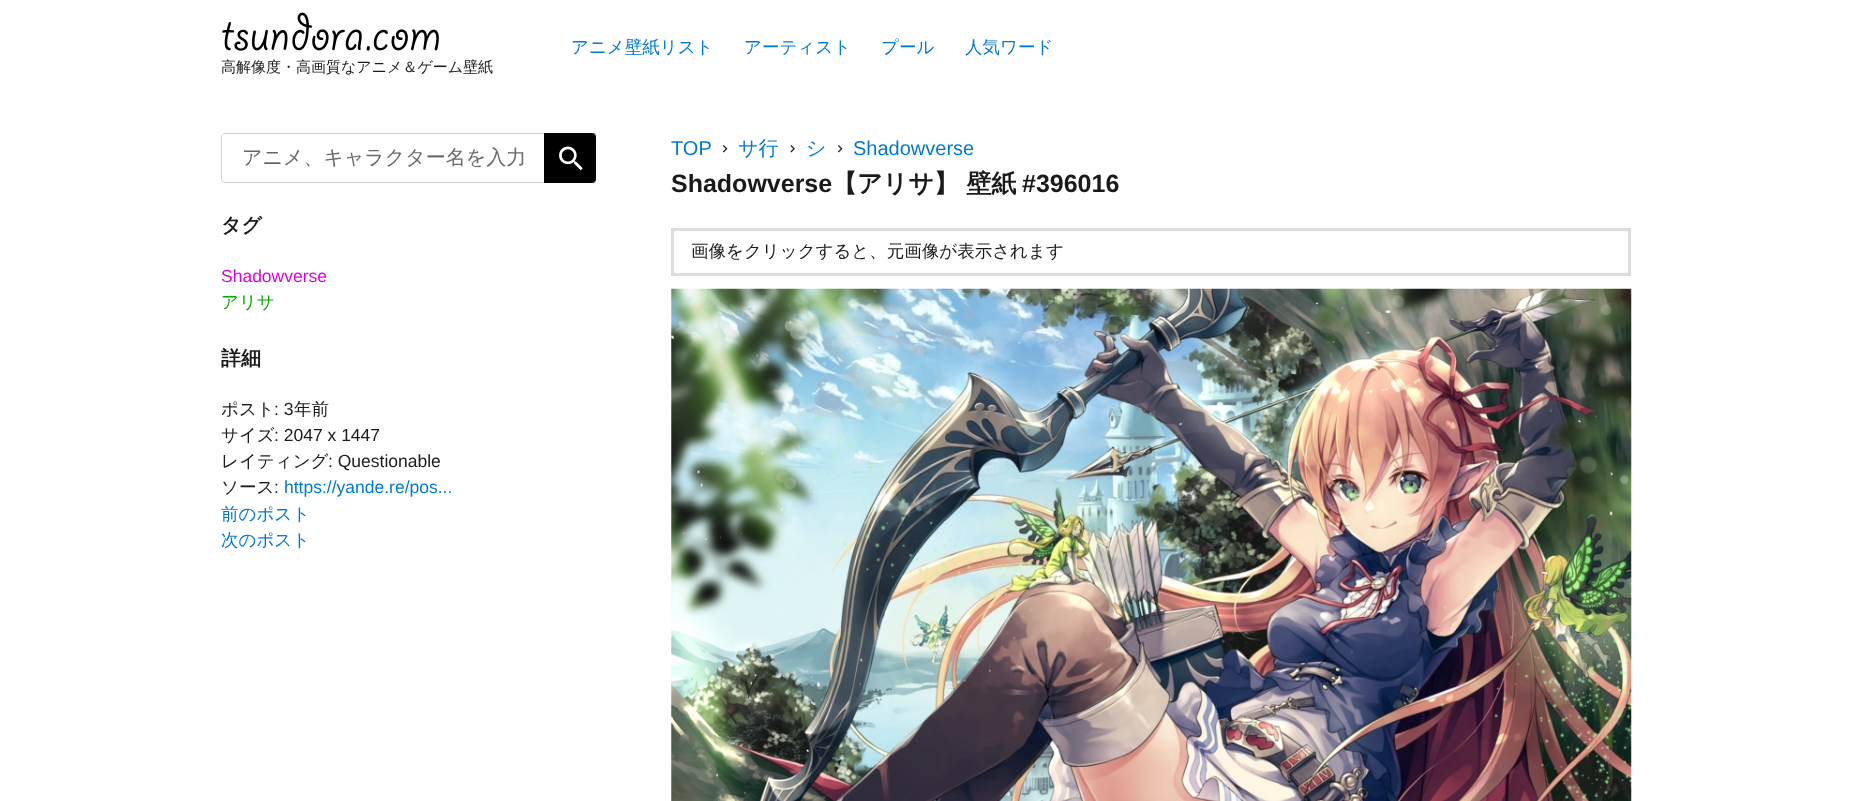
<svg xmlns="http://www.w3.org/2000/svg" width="1851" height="801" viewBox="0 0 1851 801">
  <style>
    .t1 { font: 500 17.5px WenQuanYi Zen Hei; fill: #007acc; }
    .t2 { font: 500 15px WenQuanYi Zen Hei; fill: #1a1a1a; }
    .t3 { font: 500 20px WenQuanYi Zen Hei; fill: #686868; }
    .t4 { font: bold 20px WenQuanYi Zen Hei; fill: #1a1a1a; }
    .t5 { font: 17.5px Liberation Sans; fill: #d0d; }
    .t6 { font: 500 17.5px WenQuanYi Zen Hei; fill: #0a0; }
    .t7 { font: 500 17.5px WenQuanYi Zen Hei; fill: #1a1a1a; }
    .t8 { font: 17.5px Liberation Sans; fill: #1a1a1a; }
    .t9 { font: 17.5px Liberation Sans; fill: #007acc; }
    .t10 { font: 20px Liberation Sans; fill: #007acc; }
    .t11 { font: 500 20px WenQuanYi Zen Hei; fill: #007acc; }
    .t12 { font: bold 25px Liberation Sans; fill: #1a1a1a; }
    .t13 { font: bold 25px WenQuanYi Zen Hei; fill: #1a1a1a; }
  </style>
  <rect width="100%" height="100%" fill="#fff"/>
  <text x="571" y="53" class="t1">アニメ壁紙リスト</text>
  <text x="744" y="53" class="t1">アーティスト</text>
  <text x="881" y="53" class="t1">プール</text>
  <text x="965" y="53" class="t1">人気ワード</text>
  <image x="222" y="12" width="217" height="39" href="images/1.png"/>
  <text x="221" y="72" class="t2">高解像度・高画質なアニメ＆ゲーム壁紙</text>
  <path d="M225 133.5H595.5V182.5H225C223 182.5 221.5 181 221.5 179V137C221.5 135 223 133.5 225 133.5Z" fill="none" stroke="#d1d1d1"/>
  <text x="242" y="164" class="t3">アニメ、キャラクター名を入力</text>
  <path d="M544 133H592C594 133 596 135 596 137V179C596 181 594 183 592 183H544Z" fill="#000"/>
  <image x="559" y="146" width="24" height="25" href="images/2.png"/>
  <text x="221" y="232" class="t4">タグ</text>
  <text x="221" y="282" class="t5">Shadowverse</text>
  <text x="221" y="308" class="t6">アリサ</text>
  <text x="221" y="365" class="t4">詳細</text>
  <text x="221" y="415" class="t7">ポスト</text>
  <text x="274" y="415" class="t8">: 3</text>
  <text x="294" y="415" class="t7">年前</text>
  <text x="221" y="441" class="t7">サイズ</text>
  <text x="274" y="441" class="t8">: 2047 x 1447</text>
  <text x="221" y="467" class="t7">レイティング</text>
  <text x="328" y="467" class="t8">: Questionable</text>
  <text x="221" y="493" class="t7">ソース</text>
  <text x="274" y="493" class="t8">:</text>
  <text x="284" y="493" class="t9">https://yande.re/pos...</text>
  <text x="221" y="520" class="t1">前のポスト</text>
  <text x="221" y="546" class="t1">次のポスト</text>
  <text x="671" y="155" class="t10">TOP</text>
  <image x="723" y="145" width="5" height="8" href="images/3.png"/>
  <text x="738" y="155" class="t11">サ行</text>
  <image x="790" y="145" width="5" height="8" href="images/4.png"/>
  <text x="806" y="155" class="t11">シ</text>
  <image x="838" y="145" width="5" height="8" href="images/3.png"/>
  <text x="853" y="155" class="t10">Shadowverse</text>
  <text x="671" y="192" class="t12">Shadowverse</text>
  <text x="832" y="192" class="t13">【アリサ】 壁紙</text>
  <text x="1022" y="192" class="t12">#396016</text>
  <rect x="672.5" y="229.5" width="957" height="45" fill="none" stroke="#ddd" stroke-width="3"/>
  <text x="691" y="257" class="t7">画像をクリックすると、元画像が表示されます</text>
  <image x="671" y="288" width="961" height="513" href="images/5.png"/>
</svg>
